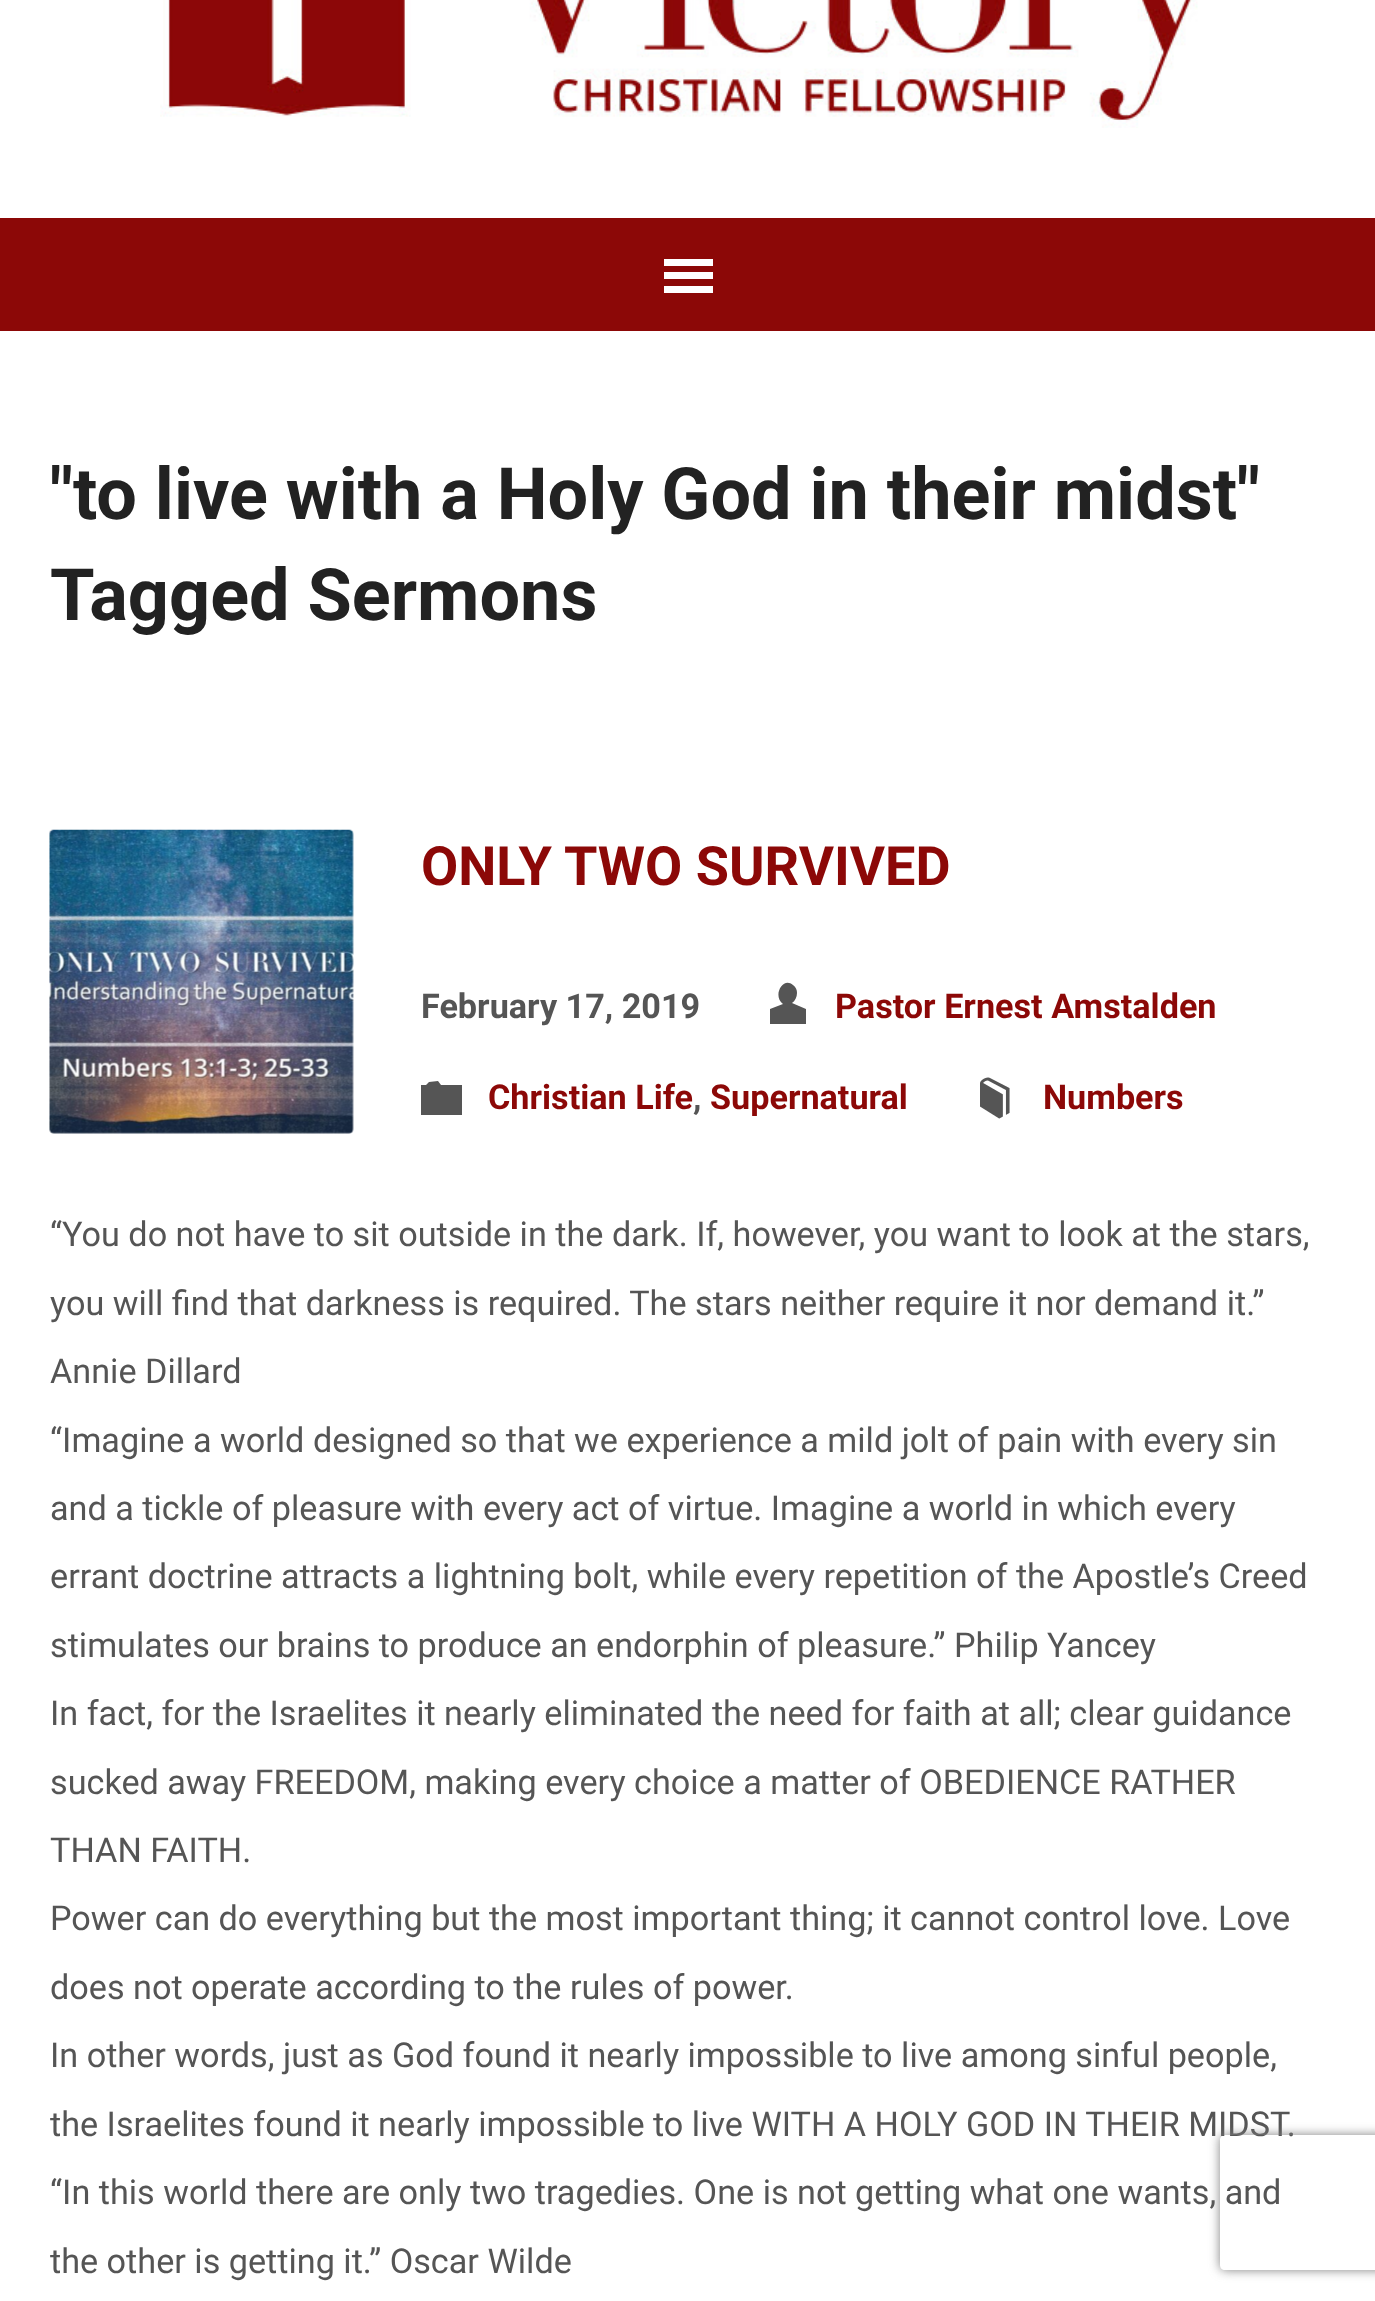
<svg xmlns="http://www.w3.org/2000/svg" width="1375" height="2301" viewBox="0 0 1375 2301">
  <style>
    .t1 { font: bold 72px Roboto; fill: #222; }
    .t2 { font: bold 54px Roboto; fill: #8c0807; }
    .t3 { font: bold 34.2px Roboto; fill: #555; }
    .t4 { font: bold 34.2px Roboto; fill: #8c0807; }
    .t5 { font: 34.2px Roboto; fill: #555; }
  </style>
  <defs>
    <clipPath id="clip1"><path d="M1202 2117H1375V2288H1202ZM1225 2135H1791C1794 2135 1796 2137 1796 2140V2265C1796 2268 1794 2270 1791 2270H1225C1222 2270 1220 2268 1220 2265V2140C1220 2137 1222 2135 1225 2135Z" clip-rule="evenodd"/></clipPath>
  </defs>
  <rect width="100%" height="100%" fill="#fff"/>
  <image x="160" y="0" width="1038" height="128" href="images/1.png"/>
  <rect x="0" y="218" width="1375" height="113" fill="#8c0807"/>
  <rect x="664" y="259" width="49" height="7" fill="#fff"/>
  <rect x="664" y="272" width="49" height="7" fill="#fff"/>
  <rect x="664" y="286" width="49" height="7" fill="#fff"/>
  <text x="50" y="519" class="t1">"to live with a Holy God in their midst"</text>
  <text x="50" y="620" class="t1">Tagged Sermons</text>
  <image x="49" y="829" width="305" height="305" href="images/2.png"/>
  <text x="421" y="885" class="t2">ONLY TWO SURVIVED</text>
  <text x="421" y="1018" class="t3">February 17, 2019</text>
  <path d="M806 1009V1024H770V1009L783 1004C772 996 783 976 793 985C796 987 797 990 797 993C797 997 795 1001 792 1003Z" fill="#555"/>
  <text x="835" y="1018" class="t4">Pastor Ernest Amstalden</text>
  <path d="M429 1082L426 1085H421V1115H462V1085H441L438 1081Z" fill="#555"/>
  <text x="488" y="1109" class="t4">Christian Life</text>
  <text x="693" y="1109" class="t3">,</text>
  <text x="710" y="1109" class="t4">Supernatural</text>
  <image x="980" y="1077" width="30" height="42" href="images/3.png"/>
  <text x="1043" y="1109" class="t4">Numbers</text>
  <text x="50" y="1246" class="t5">“You do not have to sit outside in the dark. If, however, you want to look at the stars,</text>
  <text x="50" y="1315" class="t5">you will find that darkness is required. The stars neither require it nor demand it.”</text>
  <text x="50" y="1383" class="t5">Annie Dillard</text>
  <text x="50" y="1452" class="t5">“Imagine a world designed so that we experience a mild jolt of pain with every sin</text>
  <text x="50" y="1520" class="t5">and a tickle of pleasure with every act of virtue. Imagine a world in which every</text>
  <text x="50" y="1588" class="t5">errant doctrine attracts a lightning bolt, while every repetition of the Apostle’s Creed</text>
  <text x="50" y="1657" class="t5">stimulates our brains to produce an endorphin of pleasure.” Philip Yancey</text>
  <text x="50" y="1725" class="t5">In fact, for the Israelites it nearly eliminated the need for faith at all; clear guidance</text>
  <text x="50" y="1794" class="t5">sucked away FREEDOM, making every choice a matter of OBEDIENCE RATHER</text>
  <text x="50" y="1862" class="t5">THAN FAITH.</text>
  <text x="50" y="1930" class="t5">Power can do everything but the most important thing; it cannot control love. Love</text>
  <text x="50" y="1999" class="t5">does not operate according to the rules of power.</text>
  <text x="50" y="2067" class="t5">In other words, just as God found it nearly impossible to live among sinful people,</text>
  <text x="50" y="2136" class="t5">the Israelites found it nearly impossible to live WITH A HOLY GOD IN THEIR MIDST.</text>
  <text x="50" y="2204" class="t5">“In this world there are only two tragedies. One is not getting what one wants, and</text>
  <text x="50" y="2273" class="t5">the other is getting it.” Oscar Wilde</text>
  <g clip-path="url(#clip1)">
    <rect x="1220" y="2135" width="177" height="135" rx="5" fill="#808080" filter="blur(5.5px)"/>
  </g>
</svg>
